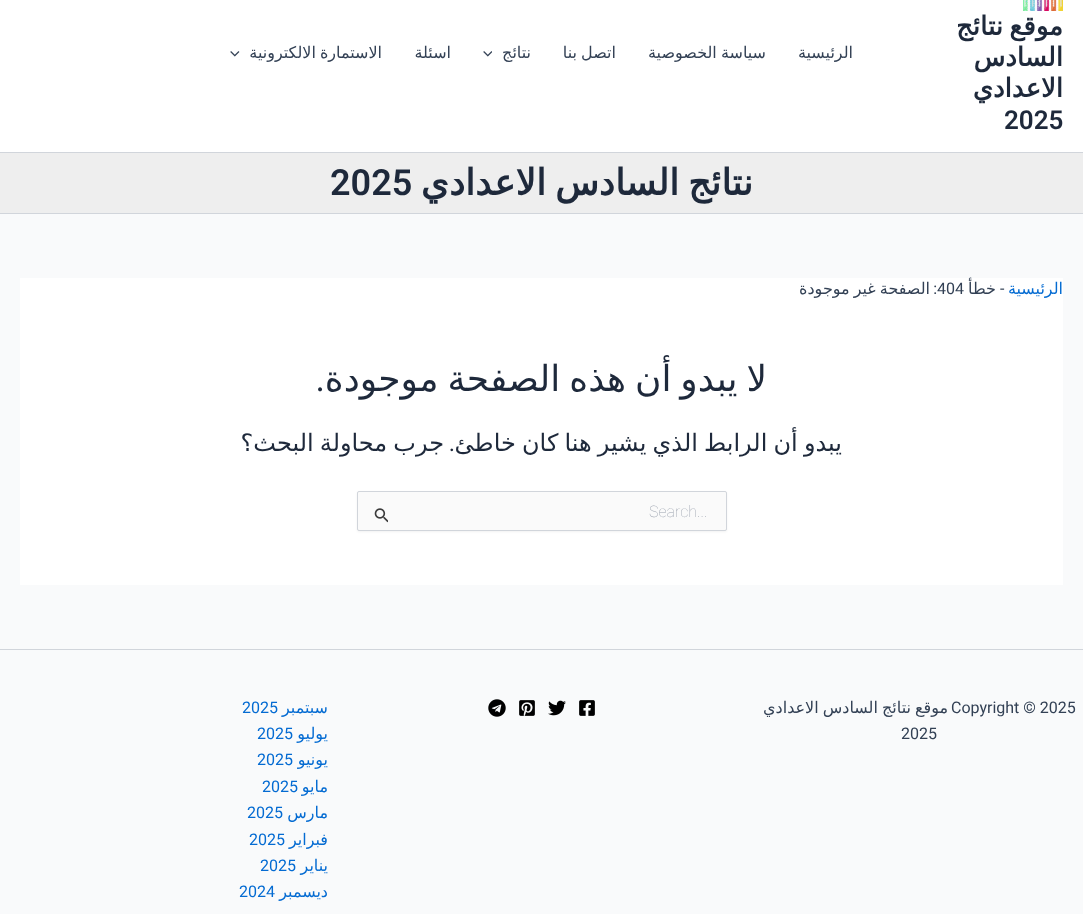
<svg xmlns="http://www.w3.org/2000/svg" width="1083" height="914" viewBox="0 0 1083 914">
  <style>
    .t1 { font: bold 26px DejaVu Sans; direction: rtl; fill: #1e293b; }
    .t2 { font: 600 26px Roboto; fill: #1e293b; }
    .t3 { font: 16px DejaVu Sans; direction: rtl; fill: #334155; }
    .t4 { font: bold 36px DejaVu Sans; direction: rtl; fill: #1e293b; }
    .t5 { font: 600 36px Roboto; fill: #1e293b; }
    .t6 { font: 16px DejaVu Sans; direction: rtl; fill: #046bd2; }
    .t7 { font: 16px Roboto; fill: #334155; }
    .t8 { font: 16px Roboto; direction: rtl; fill: #334155; }
    .t9 { font: 36px DejaVu Sans; direction: rtl; fill: #1e293b; }
    .t10 { font: 36px Roboto; direction: rtl; fill: #1e293b; }
    .t11 { font: 24px DejaVu Sans; direction: rtl; fill: #1e293b; }
    .t12 { font: 24px Roboto; direction: rtl; fill: #1e293b; }
    .t13 { font: 100 16px Roboto; fill: #9ca3af; }
    .t14 { font: 16px Roboto; fill: #046bd2; }
  </style>
  <rect width="100%" height="100%" fill="#f9fafb"/>
  <rect x="0" y="0" width="1083" height="152" fill="#fff"/>
  <rect x="0" y="152" width="1083" height="1" fill="#d1d5db"/>
  <image x="1023" y="0" width="40" height="11" href="images/1.png"/>
  <text x="1063" y="35" word-spacing="-2" class="t1">موقع نتائج</text>
  <text x="1063" y="66" class="t1">السادس</text>
  <text x="1063" y="97" class="t1">الاعدادي</text>
  <text x="1004" y="129" class="t2">2025</text>
  <text x="853" y="58" class="t3">الرئيسية</text>
  <text x="766" y="58" word-spacing="-1" class="t3">سياسة الخصوصية</text>
  <text x="616" y="58" word-spacing="-1" class="t3">اتصل بنا</text>
  <text x="531" y="58" class="t3">نتائج</text>
  <image x="483" y="51" width="9" height="6" href="images/2.png"/>
  <text x="451" y="58" class="t3">اسئلة</text>
  <text x="382" y="58" word-spacing="-1" class="t3">الاستمارة الالكترونية</text>
  <image x="230" y="51" width="10" height="6" href="images/3.png"/>
  <rect x="0" y="153" width="1083" height="60" fill="#eee"/>
  <rect x="0" y="213" width="1083" height="1" fill="#d1d5db"/>
  <text x="753" y="195" word-spacing="-2.5" class="t4">نتائج السادس الاعدادي</text>
  <text x="330" y="195" class="t5">2025</text>
  <rect x="20" y="278" width="1043" height="307" fill="#fff"/>
  <text x="1063" y="294" class="t6">الرئيسية</text>
  <text x="1000" y="294" class="t7">-</text>
  <text x="996" y="294" class="t3">خطأ</text>
  <text x="937" y="294" class="t7">404</text>
  <text x="937" y="294" class="t8">:</text>
  <text x="930" y="294" word-spacing="-1" class="t3">الصفحة غير موجودة</text>
  <text x="767" y="391" word-spacing="-2.5" class="t9">لا يبدو أن هذه الصفحة موجودة</text>
  <text x="325" y="391" class="t10">.</text>
  <text x="842" y="451" word-spacing="-1.5" class="t11">يبدو أن الرابط الذي يشير هنا كان خاطئ</text>
  <text x="455" y="451" class="t12">.</text>
  <text x="444" y="451" word-spacing="-1.5" class="t11">جرب محاولة البحث؟</text>
  <rect x="357" y="492" width="370" height="40" rx="2" fill="#0000000d" filter="blur(1px)"/>
  <rect x="357.5" y="491.5" width="369" height="39" rx="1.5" fill="#fafafa" stroke="#d1d5db"/>
  <text x="649" y="517" class="t13">Search...</text>
  <image x="374" y="508" width="14" height="15" href="images/4.png"/>
  <rect x="0" y="649" width="1083" height="1" fill="#d1d5db"/>
  <text x="951" y="713" class="t7">Copyright © 2025</text>
  <text x="948" y="713" word-spacing="-1" class="t3">موقع نتائج السادس الاعدادي</text>
  <text x="901" y="739" class="t7">2025</text>
  <image x="579" y="700" width="16" height="16" href="images/5.png"/>
  <image x="548" y="700" width="18" height="16" href="images/6.png"/>
  <image x="519" y="700" width="16" height="16" href="images/7.png"/>
  <image x="488" y="699" width="18" height="18" href="images/8.png"/>
  <text x="328" y="713" class="t6">سبتمبر</text>
  <text x="242" y="713" class="t14">2025</text>
  <text x="328" y="739" class="t6">يوليو</text>
  <text x="257" y="739" class="t14">2025</text>
  <text x="328" y="765" class="t6">يونيو</text>
  <text x="257" y="765" class="t14">2025</text>
  <text x="328" y="792" class="t6">مايو</text>
  <text x="262" y="792" class="t14">2025</text>
  <text x="328" y="818" class="t6">مارس</text>
  <text x="247" y="818" class="t14">2025</text>
  <text x="328" y="845" class="t6">فبراير</text>
  <text x="249" y="845" class="t14">2025</text>
  <text x="328" y="871" class="t6">يناير</text>
  <text x="260" y="871" class="t14">2025</text>
  <text x="328" y="897" class="t6">ديسمبر</text>
  <text x="239" y="897" class="t14">2024</text>
</svg>
